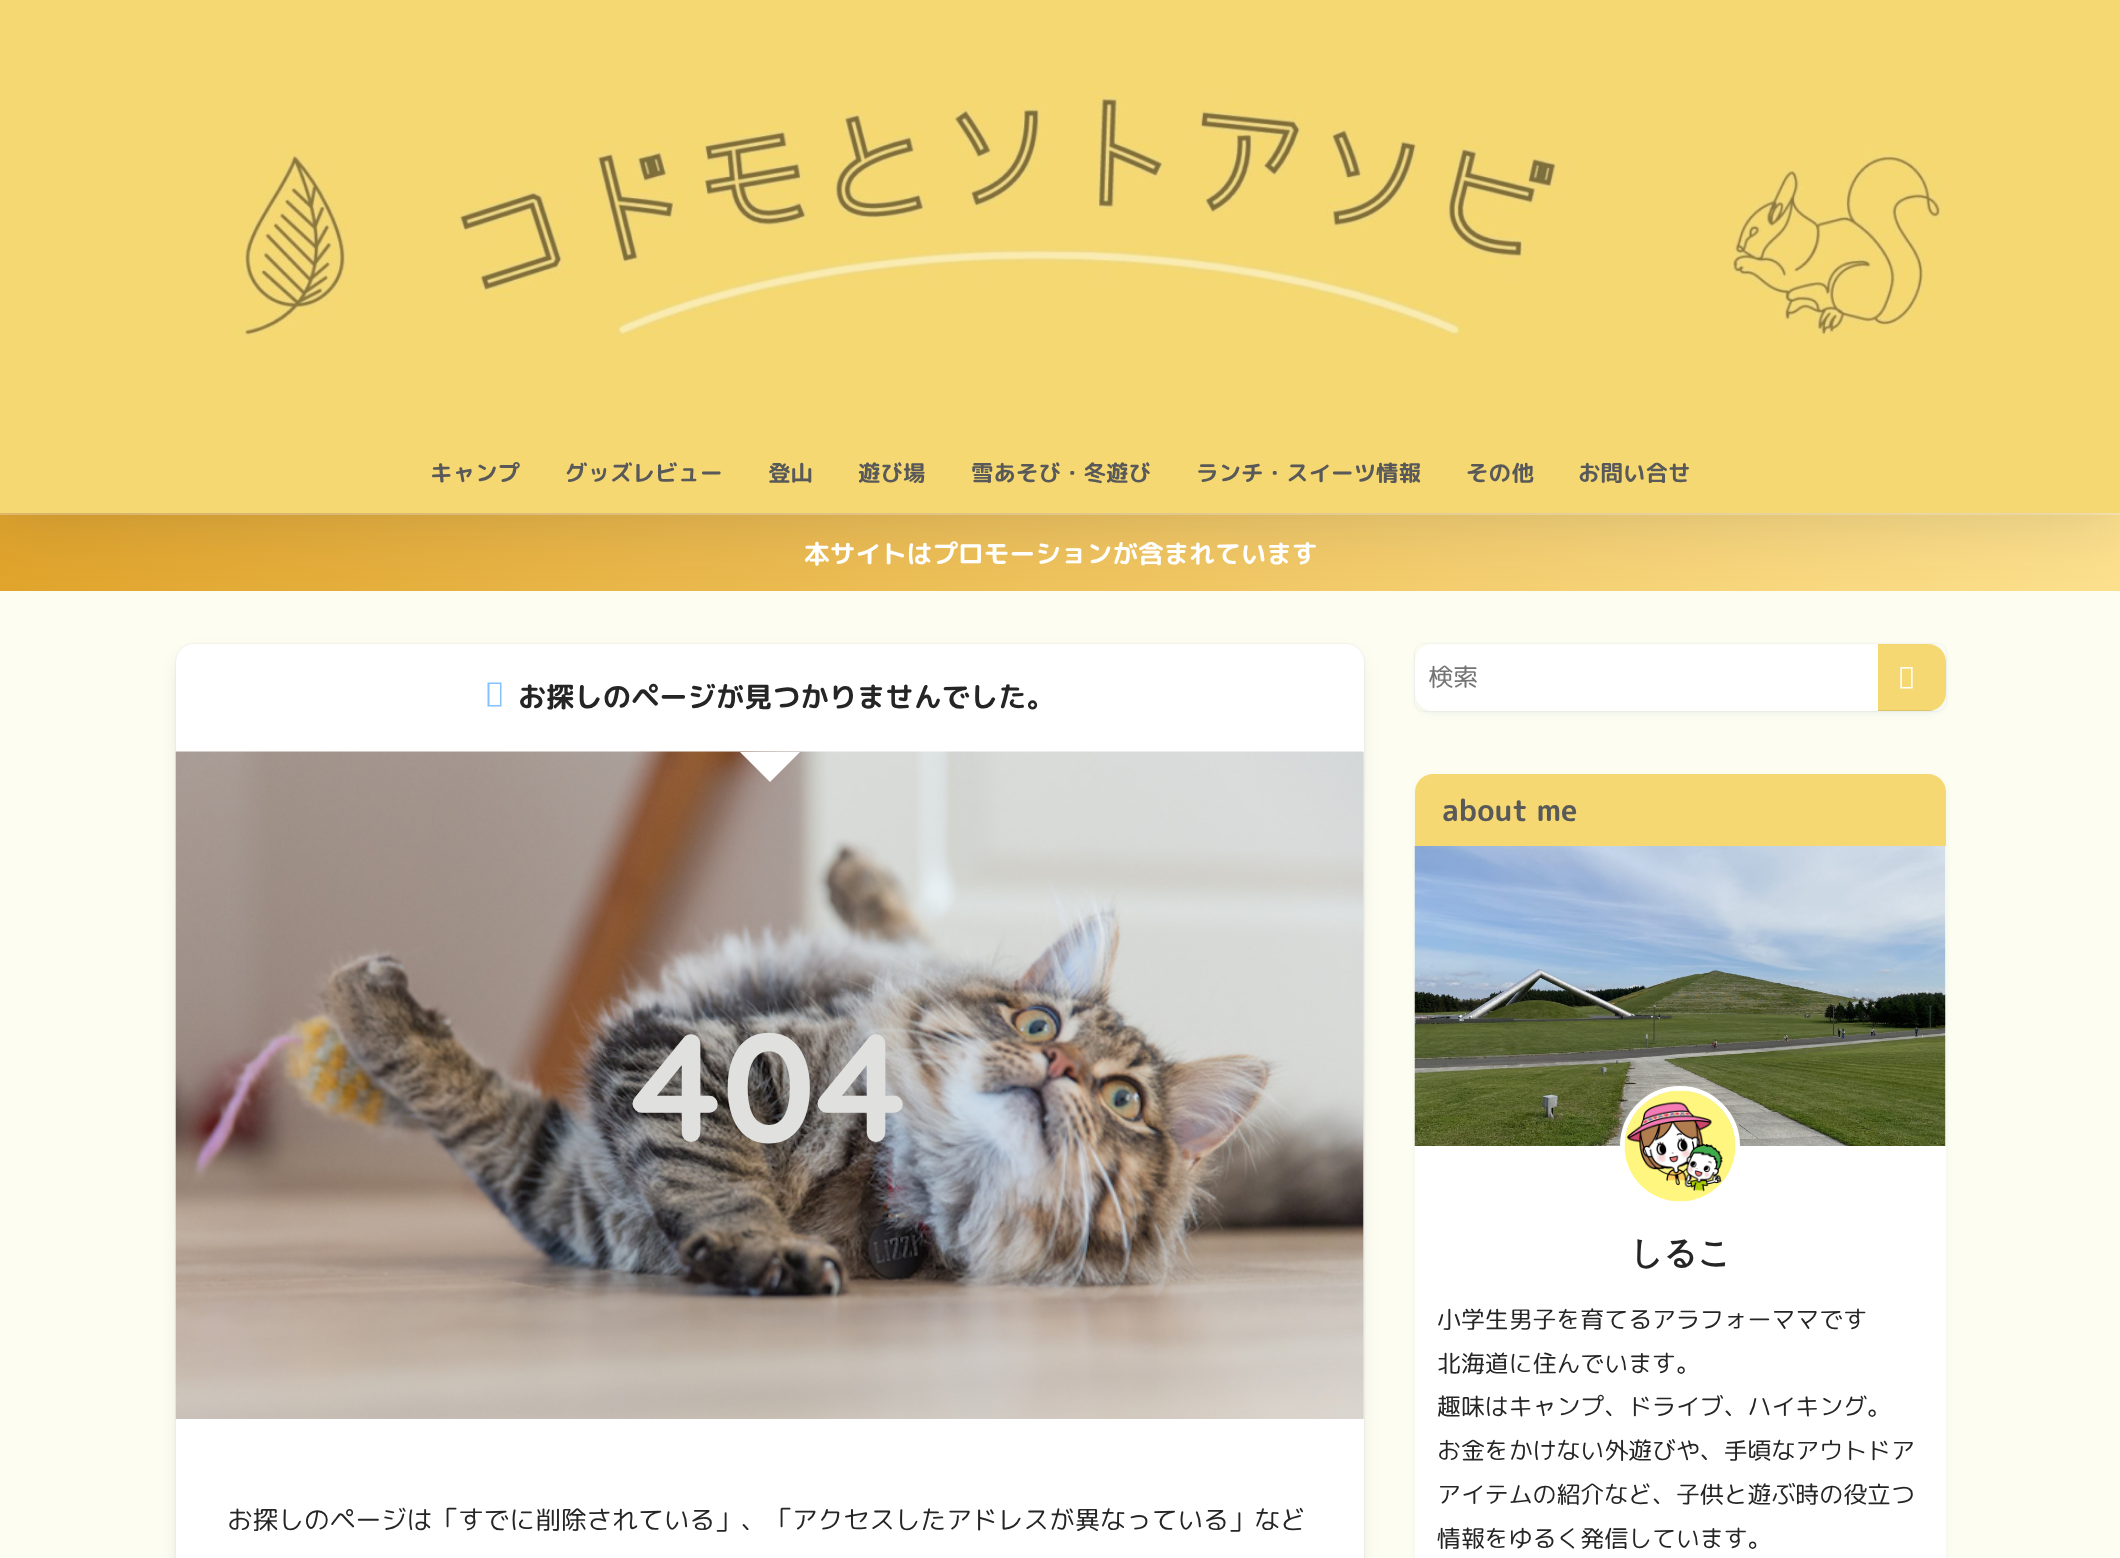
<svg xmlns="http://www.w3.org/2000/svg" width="2120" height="1558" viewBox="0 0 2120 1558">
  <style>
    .t1 { font: bold 22.5px 'Rounded Mplus 1c Bold'; fill: #595959; }
    .t2 { font: bold 25.7px 'Rounded Mplus 1c Bold'; fill: #fff; }
    .t3 { font: bold 28.25px 'Rounded Mplus 1c Bold'; fill: #252525; }
    .t4 { font: bold 154px Quicksand; fill: #e0e0df; }
    .t5 { font: 25.7px 'Rounded Mplus 1c'; fill: #252525; }
    .t6 { font: 25px 'Rounded Mplus 1c'; fill: #757575; }
    .t7 { font: bold 30px 'Rounded Mplus 1c Bold'; fill: #595959; }
    .t8 { font: bold 33px WenQuanYi Zen Hei; fill: #252525; }
    .t9 { font: 23.9px 'Rounded Mplus 1c'; fill: #252525; }
  </style>
  <defs>
    <linearGradient id="g1" gradientUnits="userSpaceOnUse" x1="4.7" y1="384" x2="2116" y2="569"><stop offset="0" stop-color="#e9bf6b"/><stop offset="1" stop-color="#fde9af"/></linearGradient>
    <linearGradient id="g2" gradientUnits="userSpaceOnUse" x1="4.7" y1="460" x2="2116" y2="645"><stop offset="0" stop-color="#e0a42c"/><stop offset="1" stop-color="#fce08d"/></linearGradient>
    <clipPath id="clip1"><path d="M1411 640H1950V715H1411ZM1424 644H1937C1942 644 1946 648 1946 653V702C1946 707 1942 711 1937 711H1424C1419 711 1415 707 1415 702V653C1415 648 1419 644 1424 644Z" clip-rule="evenodd"/></clipPath>
    <clipPath id="clip2"><rect x="1415" y="644" width="531" height="67" rx="18"/></clipPath>
  </defs>
  <rect width="100%" height="100%" fill="#fdfdf1"/>
  <rect x="0" y="513" width="2120" height="2" fill="url(#g1)"/>
  <rect x="0" y="515" width="2120" height="76" fill="url(#g2)"/>
  <rect x="0" y="0" width="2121" height="513" fill="#000c4226" filter="blur(34px)"/>
  <rect x="0" y="0" width="2120" height="513" fill="#f5d872"/>
  <image x="233" y="88" width="1712" height="249" href="images/1.png"/>
  <text x="430" y="481" class="t1">キャンプ</text>
  <text x="565" y="481" class="t1">グッズレビュー</text>
  <text x="768" y="481" class="t1">登山</text>
  <text x="858" y="481" class="t1">遊び場</text>
  <text x="971" y="481" class="t1">雪あそび・冬遊び</text>
  <text x="1196" y="481" class="t1">ランチ・スイーツ情報</text>
  <text x="1466" y="481" class="t1">その他</text>
  <text x="1578" y="481" class="t1">お問い合せ</text>
  <text x="804" y="563" class="t2">本サイトはプロモーションが含まれています</text>
  <rect x="176" y="644" width="1188" height="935" rx="18" fill="#001e641a" filter="blur(1px)"/>
  <rect x="180" y="657" width="1179" height="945" rx="14" fill="#000c421a" filter="blur(10px)"/>
  <path d="M194 644H1346C1356 644 1364 652 1364 662V752H176V662C176 652 184 644 194 644Z" fill="#fff"/>
  <path d="M487.5 706.5V682.5H501.5V706.5ZM489.5 705H500V684H489.5Z" fill="#84c2ff"/>
  <text x="518" y="707" class="t3">お探しのページが見つかりませんでした。</text>
  <image x="175" y="751" width="1189" height="668" href="images/2.png"/>
  <path d="M740 752H800L770 782Z" fill="#fff"/>
  <text x="631" y="1142" class="t4">404</text>
  <rect x="176" y="1419" width="1188" height="139" fill="#fff"/>
  <text x="227" y="1529" class="t5">お探しのページは「すでに削除されている」、「アクセスしたアドレスが異なっている」など</text>
  <rect x="1415" y="647" width="531" height="67" rx="18" fill="#4385bb12" filter="blur(3px)"/>
  <g clip-path="url(#clip1)">
    <rect x="1415" y="644" width="531" height="67" rx="9" fill="#001e641a" filter="blur(1px)"/>
  </g>
  <rect x="1415" y="644" width="531" height="67" rx="18" fill="#fff"/>
  <text x="1428" y="686" class="t6">検索</text>
  <path d="M1878 644H1928C1938 644 1946 652 1946 662V693C1946 703 1938 711 1928 711H1878Z" fill="#f5d872"/>
  <g clip-path="url(#clip2)">
    <rect x="1878" y="710" width="63" height="1" fill="#0000001a"/>
  </g>
  <image x="1900" y="667" width="13" height="22" href="images/3.png"/>
  <rect x="1415" y="777" width="531" height="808" rx="18" fill="#4385bb12" filter="blur(3px)"/>
  <rect x="1415" y="774" width="531" height="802" rx="18" fill="#fff"/>
  <path d="M1433 774H1928C1938 774 1946 782 1946 792V846H1415V792C1415 782 1423 774 1433 774Z" fill="#f5d872"/>
  <text x="1442" y="821" class="t7">about me</text>
  <image x="1414" y="846" width="532" height="300" href="images/4.png"/>
  <circle cx="1680" cy="1146" r="57.5" fill="none" stroke="#fff" stroke-width="5"/>
  <image x="1624" y="1090" width="112" height="112" href="images/5.png"/>
  <text x="1630" y="1264" class="t8">しるこ</text>
  <text x="1437" y="1328" class="t9">小学生男子を育てるアラフォーママです</text>
  <text x="1437" y="1372" class="t9">北海道に住んでいます。</text>
  <text x="1437" y="1415" class="t9">趣味はキャンプ、ドライブ、ハイキング。</text>
  <text x="1437" y="1459" class="t9">お金をかけない外遊びや、手頃なアウトドア</text>
  <text x="1437" y="1503" class="t9">アイテムの紹介など、子供と遊ぶ時の役立つ</text>
  <text x="1437" y="1547" class="t9">情報をゆるく発信しています。</text>
</svg>
